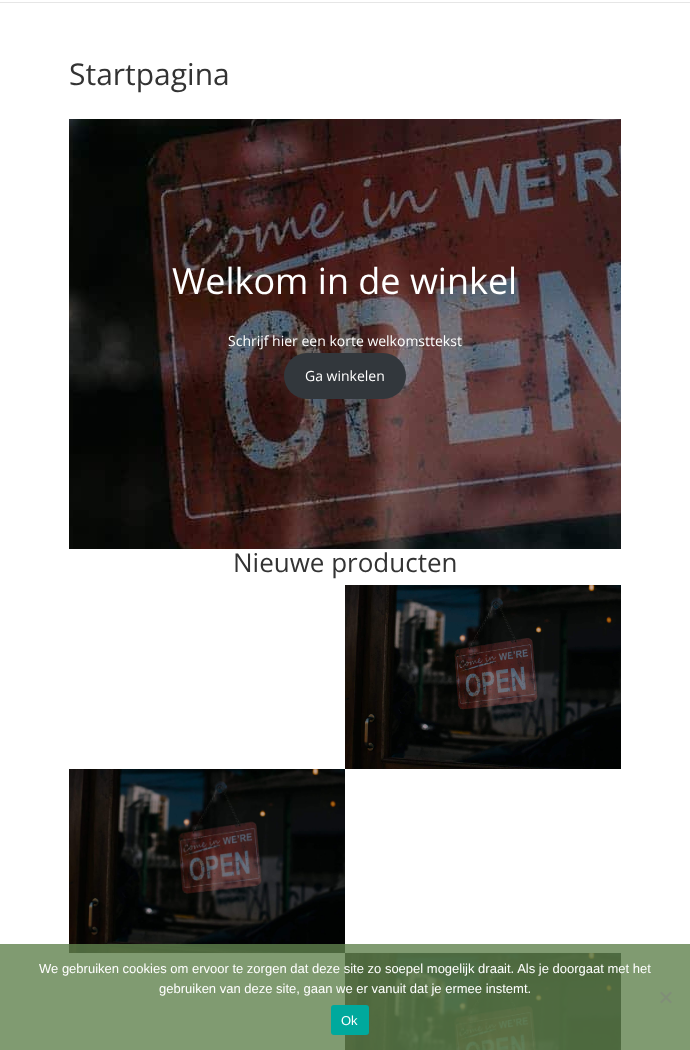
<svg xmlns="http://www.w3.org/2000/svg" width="690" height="1050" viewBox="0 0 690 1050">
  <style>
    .t1 { font: 30px Open Sans; fill: #333; }
    .t2 { font: 36px Open Sans; fill: #fff; }
    .t3 { font: 14px Open Sans; fill: #fff; }
    .t4 { font: 26px Open Sans; fill: #333; }
    .t5 { font: 13px Liberation Sans; fill: #fff; }
  </style>
  <rect width="100%" height="100%" fill="#fff"/>
  <rect x="0" y="2" width="690" height="1" fill="#e6e6e6"/>
  <text x="69" y="85" class="t1">Startpagina</text>
  <image x="69" y="119" width="552" height="430" href="images/1.png"/>
  <text x="172" y="294" class="t2">Welkom in de winkel</text>
  <text x="228" y="346" class="t3">Schrijf hier een korte welkomsttekst</text>
  <rect x="284" y="353" width="122" height="46" rx="23" fill="#32373c"/>
  <text x="305" y="381" class="t3">Ga winkelen</text>
  <text x="233" y="572" class="t4">Nieuwe producten</text>
  <image x="345" y="585" width="276" height="184" href="images/2.png"/>
  <image x="69" y="769" width="276" height="184" href="images/3.png"/>
  <image x="345" y="953" width="276" height="97" href="images/4.png"/>
  <rect x="0" y="944" width="690" height="106" fill="#60824dcc"/>
  <text x="39" y="973" class="t5">We gebruiken cookies om ervoor te zorgen dat deze site zo soepel mogelijk draait. Als je doorgaat met het</text>
  <text x="159" y="993" class="t5">gebruiken van deze site, gaan we er vanuit dat je ermee instemt.</text>
  <path d="M670.5 991.5L672 993L661.5 1003.5L660 1002Z" fill="#808e78"/>
  <path d="M660 993L661.5 991.5L672 1002L670.5 1003.5Z" fill="#808e78"/>
  <rect x="331" y="1005" width="38" height="30" rx="3" fill="#00a99d"/>
  <text x="341" y="1025" class="t5">Ok</text>
</svg>
